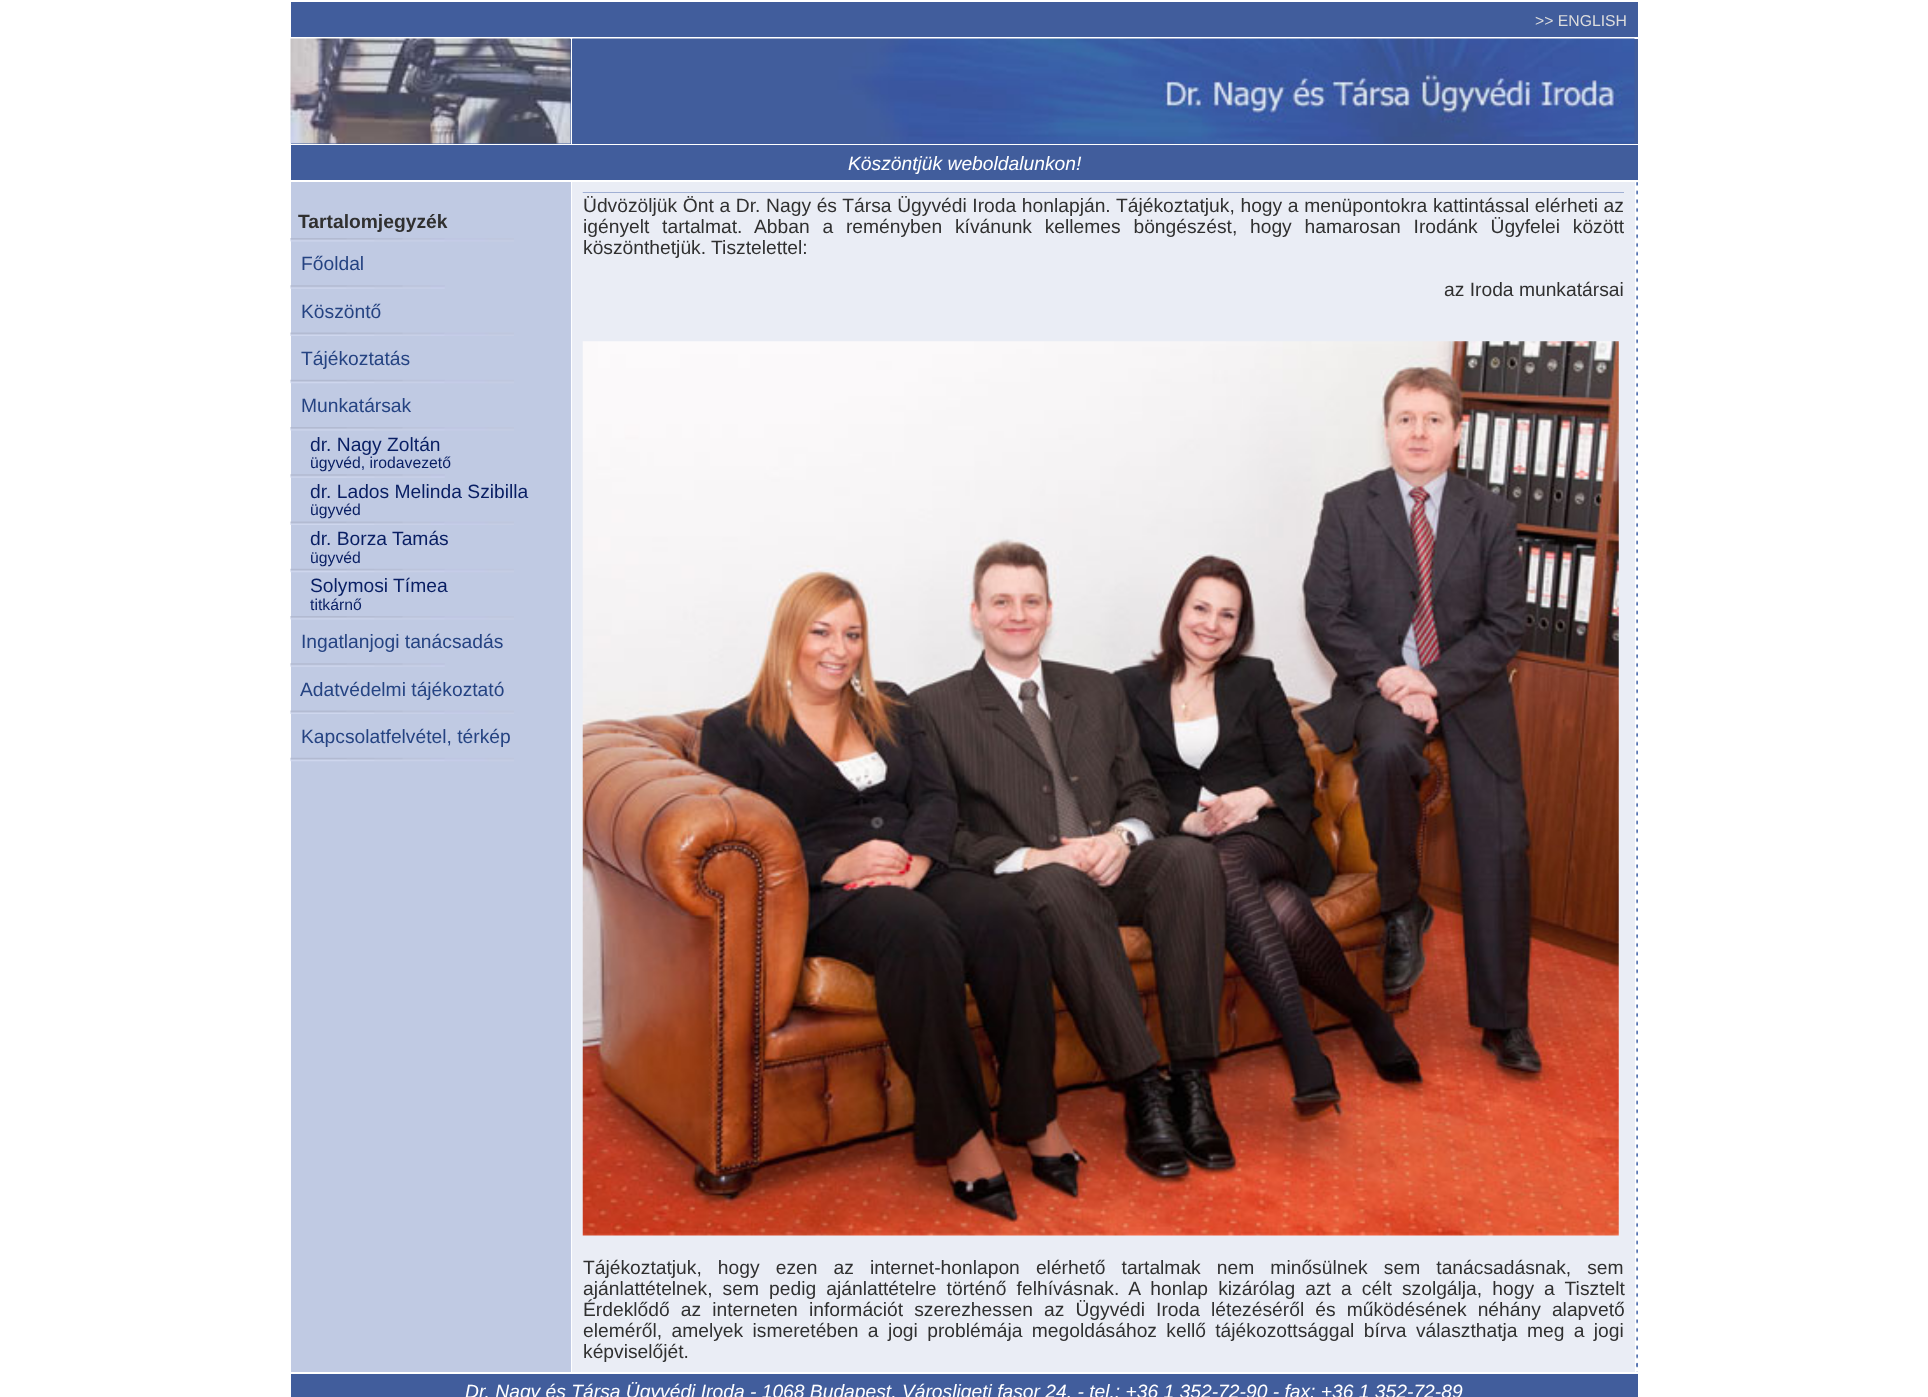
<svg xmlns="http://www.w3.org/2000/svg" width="1928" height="1397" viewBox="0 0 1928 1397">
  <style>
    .t1 { font: 15.75px Liberation Sans; fill: #ddd; }
    .t2 { font: italic 19.25px Liberation Sans; fill: #fff; }
    .t3 { font: bold 19.25px Liberation Sans; fill: #303030; }
    .t4 { font: 19.25px Liberation Sans; fill: #254382; }
    .t5 { font: 19.25px Liberation Sans; fill: #081e63; }
    .t6 { font: 15.75px Liberation Sans; fill: #081e63; }
    .t7 { font: 19.25px Liberation Sans; fill: #303030; }
  </style>
  <rect width="100%" height="100%" fill="#fff"/>
  <rect x="291" y="2" width="1347" height="35" fill="#415d9c"/>
  <text x="1535" y="26" class="t1">&gt;&gt; ENGLISH</text>
  <rect x="291" y="39" width="280" height="105" fill="#415d9c"/>
  <image x="290" y="38" width="281" height="106" href="images/1.png"/>
  <rect x="572" y="39" width="1066" height="105" fill="#415d9c"/>
  <image x="572" y="38" width="1063" height="106" href="images/2.png"/>
  <rect x="291" y="145" width="1347" height="35" fill="#415d9c"/>
  <text x="848" y="170" class="t2">Köszöntjük weboldalunkon!</text>
  <rect x="291" y="182" width="280" height="1190" fill="#c0cae3"/>
  <text x="298" y="228" class="t3">Tartalomjegyzék</text>
  <image x="290" y="238" width="224" height="4" href="images/3.png"/>
  <text x="301" y="270" class="t4">Főoldal</text>
  <image x="290" y="285" width="155" height="4" href="images/4.png"/>
  <text x="301" y="318" class="t4">Köszöntő</text>
  <image x="290" y="332" width="224" height="4" href="images/5.png"/>
  <text x="301" y="365" class="t4">Tájékoztatás</text>
  <image x="290" y="379" width="224" height="5" href="images/6.png"/>
  <text x="301" y="412" class="t4">Munkatársak</text>
  <image x="290" y="427" width="224" height="4" href="images/3.png"/>
  <text x="310" y="451" class="t5">dr. Nagy Zoltán</text>
  <text x="310" y="468" class="t6">ügyvéd, irodavezető</text>
  <image x="290" y="474" width="155" height="4" href="images/4.png"/>
  <text x="310" y="498" class="t5">dr. Lados Melinda Szibilla</text>
  <text x="310" y="515" class="t6">ügyvéd</text>
  <image x="290" y="521" width="224" height="4" href="images/5.png"/>
  <text x="310" y="545" class="t5">dr. Borza Tamás</text>
  <text x="310" y="563" class="t6">ügyvéd</text>
  <image x="290" y="568" width="224" height="5" href="images/6.png"/>
  <text x="310" y="592" class="t5">Solymosi Tímea</text>
  <text x="310" y="610" class="t6">titkárnő</text>
  <image x="290" y="616" width="224" height="4" href="images/3.png"/>
  <text x="301" y="648" class="t4">Ingatlanjogi tanácsadás</text>
  <image x="290" y="663" width="155" height="4" href="images/4.png"/>
  <text x="300" y="696" class="t4">Adatvédelmi tájékoztató</text>
  <image x="290" y="710" width="224" height="4" href="images/5.png"/>
  <text x="301" y="743" class="t4">Kapcsolatfelvétel, térkép</text>
  <image x="290" y="757" width="224" height="5" href="images/6.png"/>
  <rect x="572" y="182" width="1063" height="1190" fill="#eaedf5"/>
  <image x="582" y="192" width="1042" height="1" href="images/7.png"/>
  <text x="583" y="212" word-spacing="0.3" class="t7">Üdvözöljük Önt a Dr. Nagy és Társa Ügyvédi Iroda honlapján. Tájékoztatjuk, hogy a menüpontokra kattintással elérheti az</text>
  <text x="583" y="233" word-spacing="7.4" class="t7">igényelt tartalmat. Abban a reményben kívánunk kellemes böngészést, hogy hamarosan Irodánk Ügyfelei között</text>
  <text x="583" y="254" class="t7">köszönthetjük. Tisztelettel:</text>
  <text x="1444" y="296" class="t7">az Iroda munkatársai</text>
  <image x="582" y="341" width="1037" height="895" href="images/8.png"/>
  <text x="583" y="1274" word-spacing="10.75" class="t7">Tájékoztatjuk, hogy ezen az internet-honlapon elérhető tartalmak nem minősülnek sem tanácsadásnak, sem</text>
  <text x="583" y="1295" word-spacing="4.75" class="t7">ajánlattételnek, sem pedig ajánlattételre történő felhívásnak. A honlap kizárólag azt a célt szolgálja, hogy a Tisztelt</text>
  <text x="583" y="1316" word-spacing="5.75" class="t7">Érdeklődő az interneten információt szerezhessen az Ügyvédi Iroda létezéséről és működésének néhány alapvető</text>
  <text x="583" y="1337" word-spacing="4" class="t7">eleméről, amelyek ismeretében a jogi problémája megoldásához kellő tájékozottsággal bírva választhatja meg a jogi</text>
  <text x="583" y="1358" class="t7">képviselőjét.</text>
  <image x="1636" y="182" width="2" height="1190" href="images/9.png"/>
  <image x="1636" y="1363" width="2" height="5" href="images/10.png"/>
  <rect x="291" y="1374" width="1347" height="23" fill="#415d9c"/>
  <text x="465" y="1398" class="t2">Dr. Nagy és Társa Ügyvédi Iroda - 1068 Budapest, Városligeti fasor 24. - tel.: +36 1 352-72-90 - fax: +36 1 352-72-89</text>
</svg>
